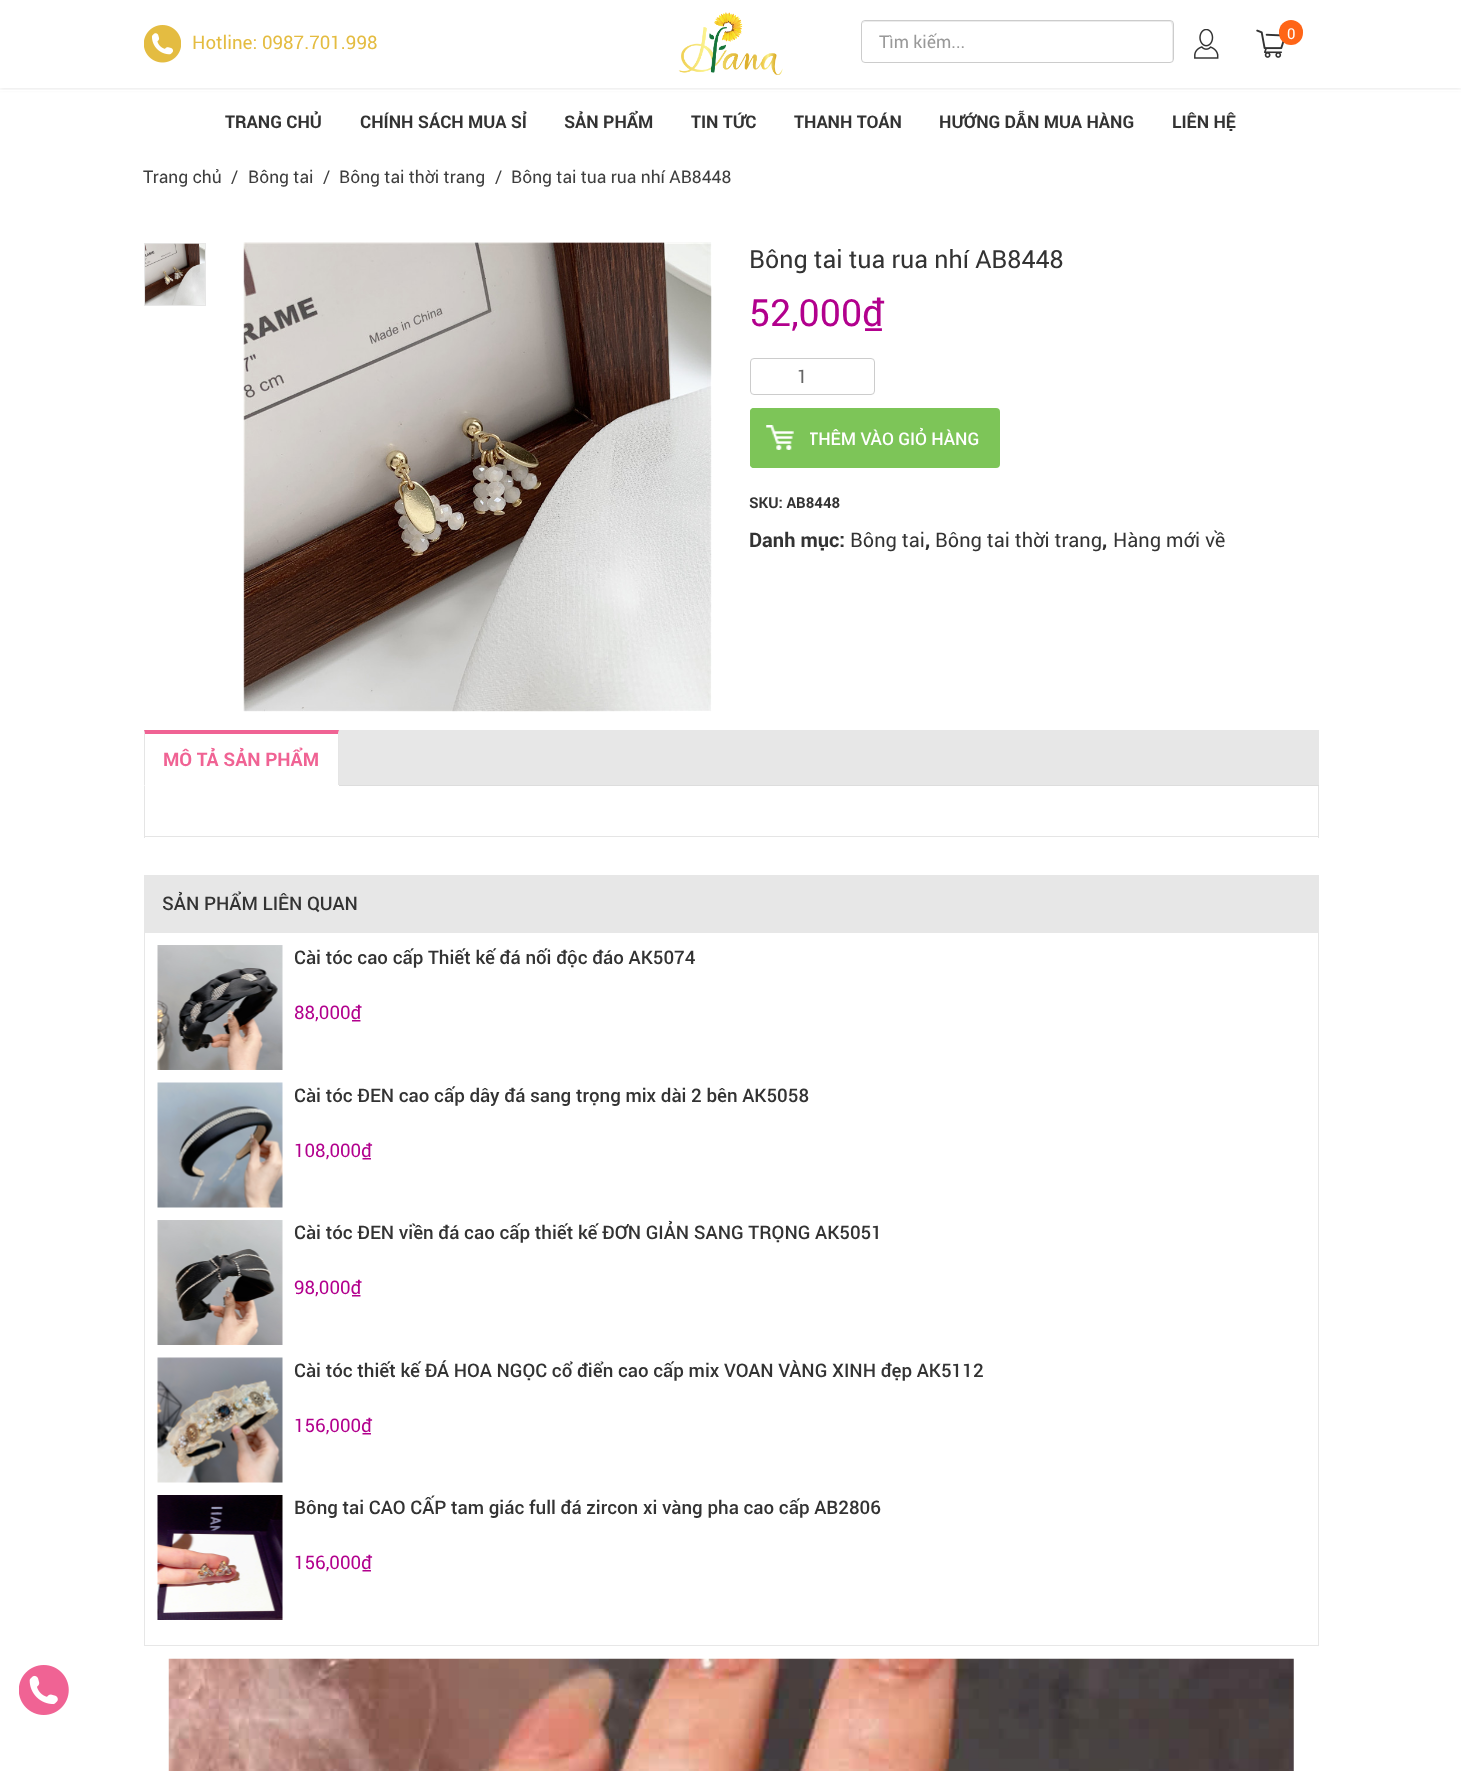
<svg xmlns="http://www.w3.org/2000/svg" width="1461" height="1771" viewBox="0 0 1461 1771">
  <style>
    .t1 { font: 18.75px Roboto; fill: #e4bc41; }
    .t2 { font: 17.5px Roboto; fill: #999; }
    .t3 { font: 15px Roboto; fill: #fff; }
    .t4 { font: bold 17.5px Roboto; fill: #333; }
    .t5 { font: 17.5px Roboto; fill: #3e3e3e; }
    .t6 { font: 25px Roboto; fill: #333; }
    .t7 { font: 37.5px Roboto; fill: #b2008d; }
    .t8 { font: 18.75px Roboto; fill: #666; }
    .t9 { font: 500 17.5px Roboto; fill: #fff; }
    .t10 { font: bold 15px Roboto; fill: #333; }
    .t11 { font: bold 20px Roboto; fill: #333; }
    .t12 { font: 20px Roboto; fill: #333; }
    .t13 { font: bold 18.75px Roboto; fill: #f06394; }
    .t14 { font: 500 18.75px Roboto; fill: #333; }
    .t15 { font: 18.75px Roboto; fill: #b2008d; }
  </style>
  <defs>
    <clipPath id="clip1"><path d="M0 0H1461V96H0ZM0 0H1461V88H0Z" clip-rule="evenodd"/></clipPath>
  </defs>
  <rect width="100%" height="100%" fill="#fff"/>
  <g clip-path="url(#clip1)">
    <rect x="0" y="1" width="1461" height="88" fill="#00000017" filter="blur(2px)"/>
  </g>
  <image x="144" y="25" width="37" height="38" href="images/1.png"/>
  <text x="192" y="49" class="t1">Hotline: 0987.701.998</text>
  <image x="678" y="12" width="105" height="63" href="images/2.png"/>
  <path d="M865 22H1170C1173 22 1172 36 1172 37V61C1173 60 1173 59 1173 58V24C1173 22 1172 21 1170 21H866C864 21 863 22 863 23Z" fill="#ececec"/>
  <rect x="861.5" y="20.5" width="312" height="42" rx="3.5" fill="none" stroke="#ccc"/>
  <text x="879" y="48" class="t2">Tìm kiếm...</text>
  <image x="1194" y="29" width="25" height="30" href="images/3.png"/>
  <image x="1256" y="29" width="29" height="29" href="images/4.png"/>
  <rect x="1279" y="20" width="24" height="25" rx="12" fill="#ff6517"/>
  <text x="1287" y="39" class="t3">0</text>
  <rect x="0" y="90" width="1461" height="1" fill="#fff"/>
  <text x="225" y="128" class="t4">TRANG CHỦ</text>
  <text x="360" y="128" class="t4">CHÍNH SÁCH MUA SỈ</text>
  <text x="564" y="128" class="t4">SẢN PHẨM</text>
  <text x="691" y="128" class="t4">TIN TỨC</text>
  <text x="794" y="128" class="t4">THANH TOÁN</text>
  <text x="939" y="128" class="t4">HƯỚNG DẪN MUA HÀNG</text>
  <text x="1172" y="128" class="t4">LIÊN HỆ</text>
  <text x="143" y="183" class="t5">Trang chủ</text>
  <text x="231" y="183" class="t5">/</text>
  <text x="248" y="183" class="t5">Bông tai</text>
  <text x="323" y="183" class="t5">/</text>
  <text x="339" y="183" class="t5">Bông tai thời trang</text>
  <text x="495" y="183" class="t5">/</text>
  <text x="511" y="183" class="t5">Bông tai tua rua nhí AB8448</text>
  <rect x="144.5" y="243.5" width="61" height="62" fill="none" stroke="#e7e7e7"/>
  <image x="145" y="243" width="60" height="62" href="images/5.png"/>
  <image x="243" y="242" width="469" height="470" href="images/6.png"/>
  <text x="749" y="268" class="t6">Bông tai tua rua nhí AB8448</text>
  <text x="749" y="326" class="t7">52,000₫</text>
  <rect x="750.5" y="358.5" width="124" height="36" rx="3.5" fill="none" stroke="#ccc"/>
  <text x="797" y="383" class="t8">1</text>
  <rect x="750" y="408" width="250" height="60" rx="4" fill="#7dc558"/>
  <text x="808" y="445" class="t9">THÊM VÀO GIỎ HÀNG</text>
  <path d="M754 408H810V468H754C752 468 750 466 750 464V412C750 410 752 408 754 408Z" fill="#7dc558"/>
  <image x="766" y="425" width="28" height="25" href="images/7.png"/>
  <text x="749" y="508" class="t10">SKU: AB8448</text>
  <text x="749" y="547" class="t11">Danh mục:</text>
  <text x="850" y="547" class="t12">Bông tai</text>
  <text x="925" y="547" class="t11">,</text>
  <text x="935" y="547" class="t12">Bông tai thời trang</text>
  <text x="1102" y="547" class="t11">,</text>
  <text x="1113" y="547" class="t12">Hàng mới về</text>
  <rect x="144" y="730" width="1175" height="55" fill="#e7e7e7"/>
  <rect x="339" y="785" width="980" height="1" fill="#ddd"/>
  <rect x="145" y="734" width="193" height="51" fill="#fff"/>
  <path d="M144 730H339L338 734H145Z" fill="#f06394"/>
  <path d="M339 730V786L338 785V734Z" fill="#e5e5e5"/>
  <rect x="338" y="785" width="1" height="1" fill="#fff"/>
  <path d="M144 786V730L145 734V785Z" fill="#e5e5e5"/>
  <text x="163" y="766" class="t13">MÔ TẢ SẢN PHẨM</text>
  <rect x="1318" y="786" width="1" height="52" fill="#e5e5e5"/>
  <rect x="144" y="836" width="1175" height="1" fill="#e5e5e5"/>
  <rect x="144" y="786" width="1" height="52" fill="#e5e5e5"/>
  <rect x="144" y="875" width="1175" height="58" fill="#e7e7e7"/>
  <text x="162" y="910" class="t14">SẢN PHẨM LIÊN QUAN</text>
  <rect x="1318" y="933" width="1" height="713" fill="#e7e7e7"/>
  <rect x="144" y="1645" width="1175" height="1" fill="#e7e7e7"/>
  <rect x="144" y="933" width="1" height="713" fill="#e7e7e7"/>
  <image x="157" y="945" width="126" height="125" href="images/8.png"/>
  <text x="294" y="964" class="t14">Cài tóc cao cấp Thiết kế đá nối độc đáo AK5074</text>
  <text x="294" y="1019" class="t15">88,000₫</text>
  <image x="157" y="1082" width="126" height="126" href="images/9.png"/>
  <text x="294" y="1102" class="t14">Cài tóc ĐEN cao cấp dây đá sang trọng mix dài 2 bên AK5058</text>
  <text x="294" y="1157" class="t15">108,000₫</text>
  <image x="157" y="1220" width="126" height="125" href="images/10.png"/>
  <text x="294" y="1239" class="t14">Cài tóc ĐEN viền đá cao cấp thiết kế ĐƠN GIẢN SANG TRỌNG AK5051</text>
  <text x="294" y="1294" class="t15">98,000₫</text>
  <image x="157" y="1357" width="126" height="126" href="images/11.png"/>
  <text x="294" y="1377" class="t14">Cài tóc thiết kế ĐÁ HOA NGỌC cổ điển cao cấp mix VOAN VÀNG XINH đẹp AK5112</text>
  <text x="294" y="1432" class="t15">156,000₫</text>
  <image x="157" y="1495" width="126" height="125" href="images/12.png"/>
  <text x="294" y="1514" class="t14">Bông tai CAO CẤP tam giác full đá zircon xi vàng pha cao cấp AB2806</text>
  <text x="294" y="1569" class="t15">156,000₫</text>
  <image x="168" y="1658" width="1126" height="113" href="images/13.png"/>
  <image x="19" y="1665" width="50" height="50" href="images/14.png"/>
</svg>
